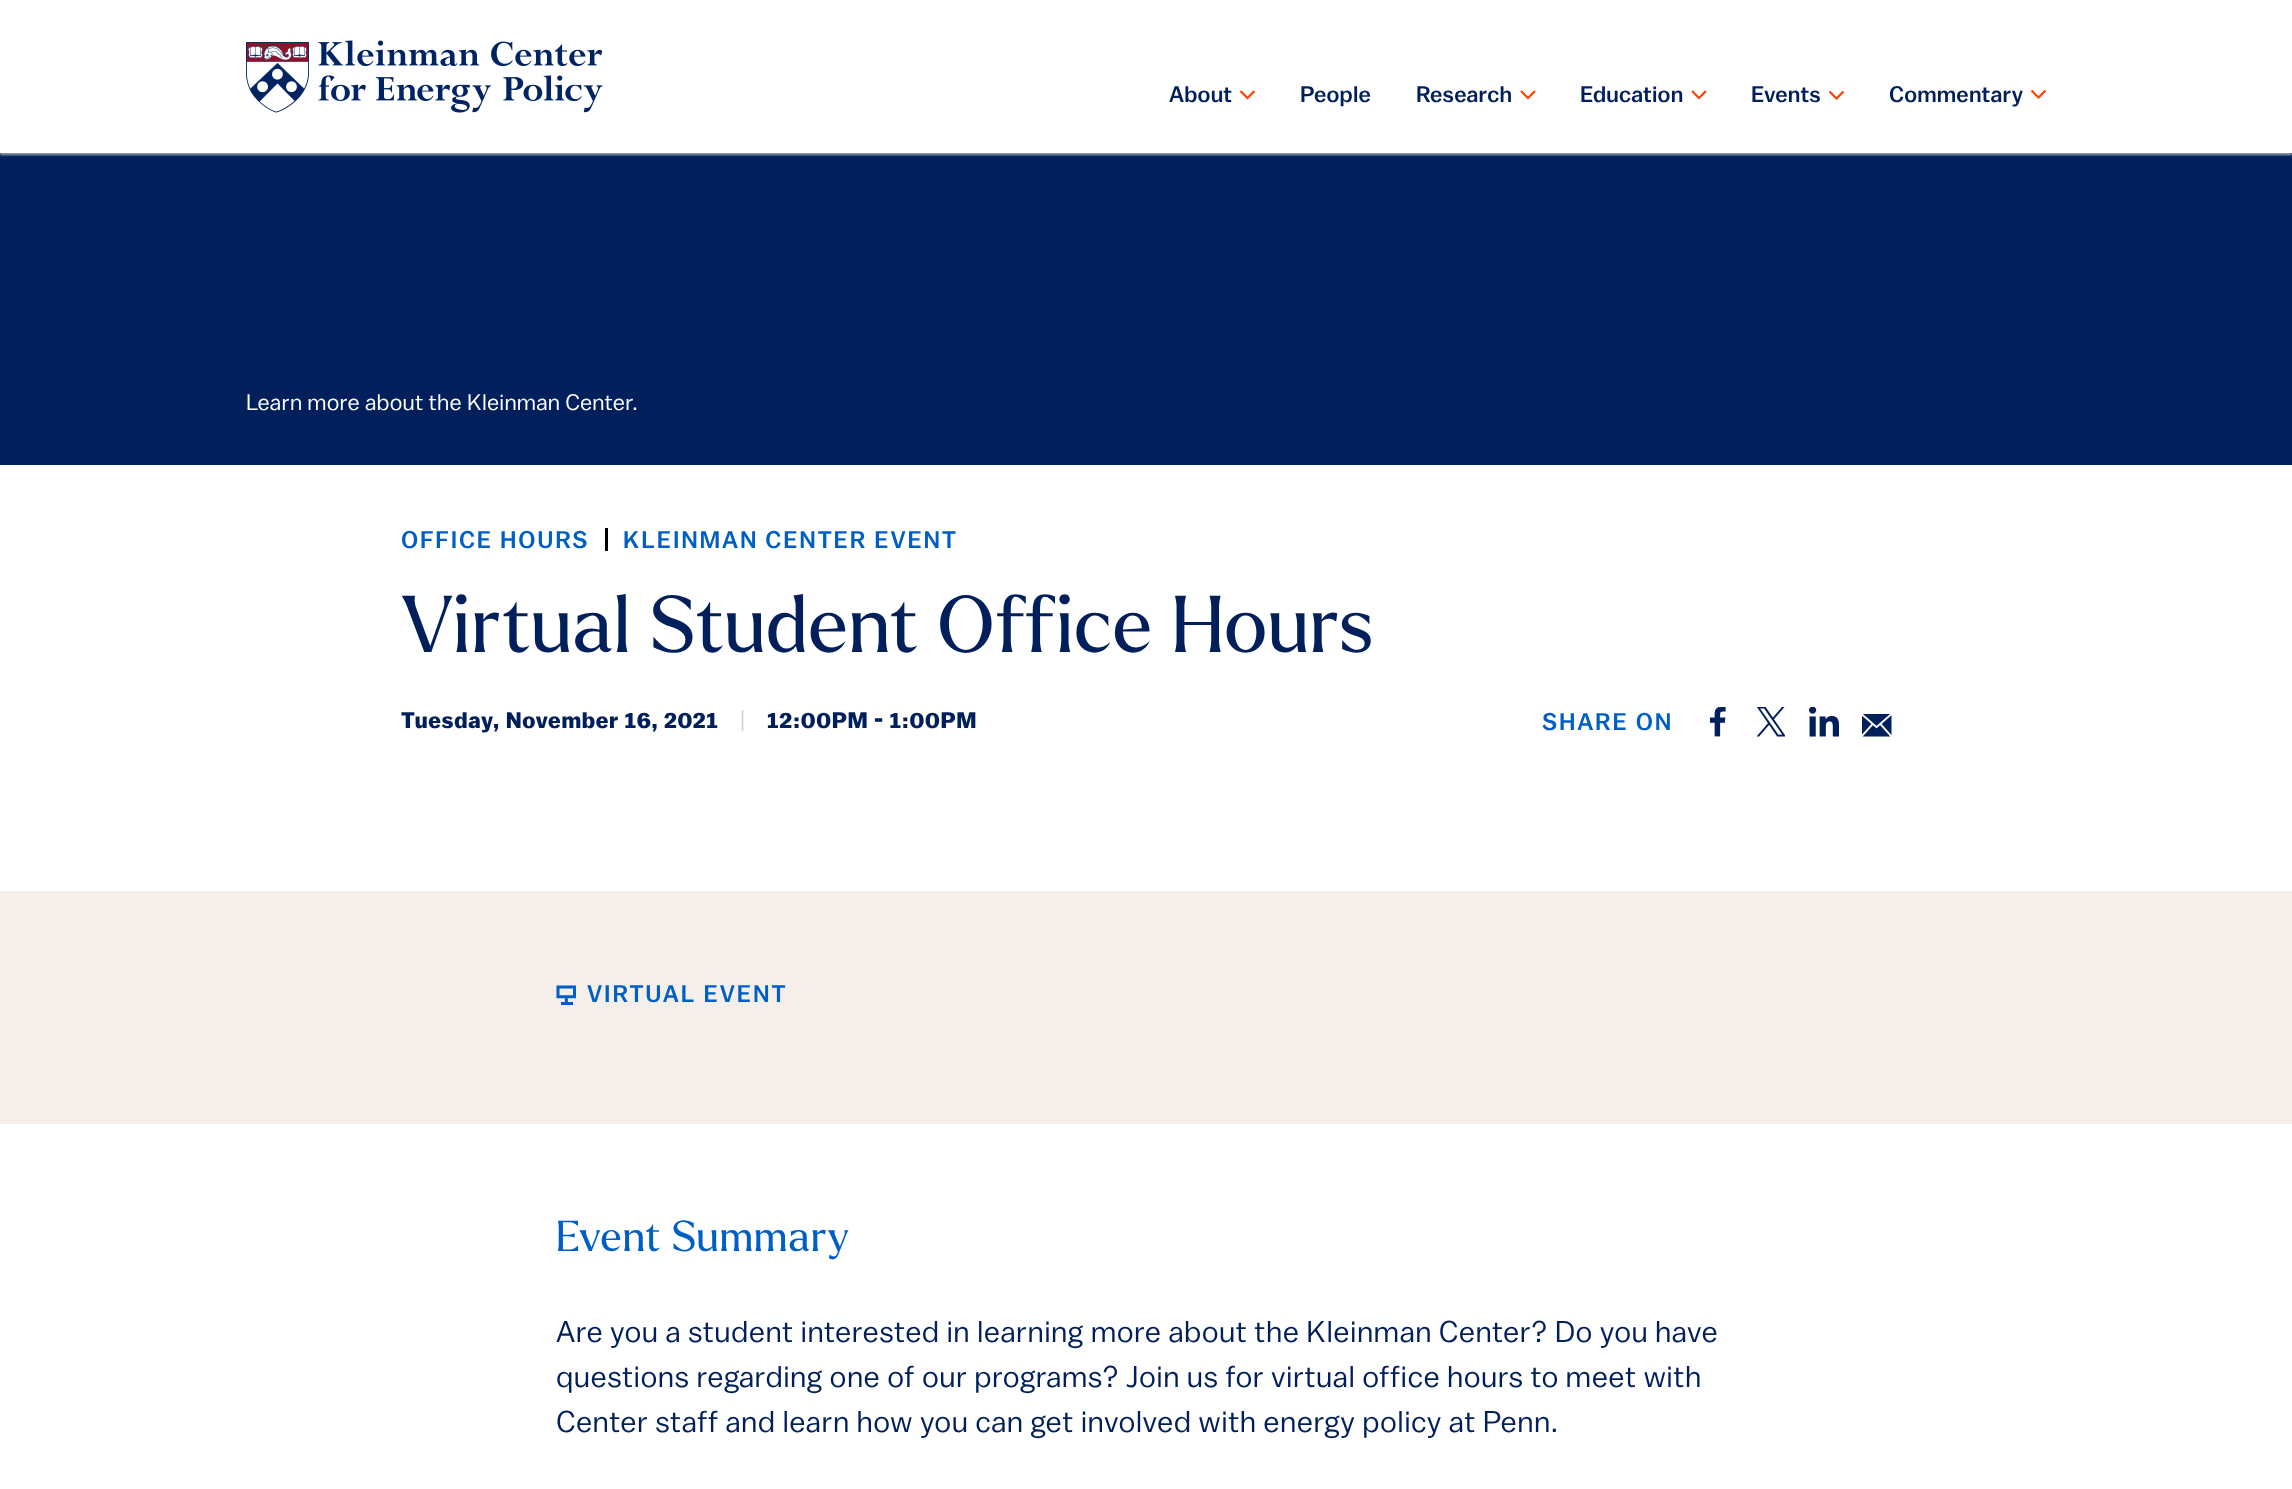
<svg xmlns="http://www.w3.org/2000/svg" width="2292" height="1489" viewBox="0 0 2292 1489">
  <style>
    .t1 { font: 500 22.5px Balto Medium; letter-spacing: 0.2px; fill: #011f5b; }
    .t2 { font: 22.5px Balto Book; letter-spacing: 0.2px; fill: #fff; }
    .t3 { font: 500 24px Balto Medium; letter-spacing: 1.8px; fill: #005fc4; }
    .t4 { font: 78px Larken; letter-spacing: 0.75px; fill: #011f5b; }
    .t5 { font: bold 22.5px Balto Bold; letter-spacing: 0.7px; fill: #011f5b; }
    .t6 { font: 22.5px Balto Book; letter-spacing: 0.7px; fill: #ddd0cb; }
    .t7 { font: 500 24px Balto Medium; letter-spacing: 1.9px; fill: #005fc4; }
    .t8 { font: 42px Larken; letter-spacing: 0.8px; fill: #005fc4; }
    .t9 { font: 30px Balto Book; letter-spacing: 0.45px; fill: #011f5b; }
  </style>
  <defs>
    <clipPath id="clip1"><rect x="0" y="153" width="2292" height="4"/></clipPath>
  </defs>
  <rect width="100%" height="100%" fill="#fff"/>
  <image x="246" y="40" width="357" height="73" href="images/1.png"/>
  <text x="1169" y="102" class="t1">About</text>
  <path d="M1254.5 91L1247.5 98L1240.5 91" fill="none" stroke="#ff4100" stroke-width="2.2"/>
  <text x="1300" y="102" class="t1">People</text>
  <text x="1416" y="102" class="t1">Research</text>
  <path d="M1535 91L1528 98L1521 91" fill="none" stroke="#ff4100" stroke-width="2.2"/>
  <text x="1580" y="102" class="t1">Education</text>
  <path d="M1706 91L1699 98L1692 91" fill="none" stroke="#ff4100" stroke-width="2.2"/>
  <text x="1751" y="102" class="t1">Events</text>
  <path d="M1843.5 91.5L1836.5 98.5L1829.5 91.5" fill="none" stroke="#ff4100" stroke-width="2.2"/>
  <text x="1889" y="102" class="t1">Commentary</text>
  <path d="M2045.5 90.5L2038.5 97.5L2031.5 90.5" fill="none" stroke="#ff4100" stroke-width="2.2"/>
  <rect x="0" y="153" width="2292" height="312" fill="#011f5b"/>
  <g clip-path="url(#clip1)">
    <rect x="0" y="152" width="2292" height="3" fill="#d6d6d6bd" filter="blur(1px)"/>
  </g>
  <text x="246" y="410" class="t2">Learn more about the Kleinman Center.</text>
  <text x="401" y="548" class="t3">OFFICE HOURS</text>
  <rect x="605" y="528" width="3" height="23" fill="#000"/>
  <text x="623" y="548" class="t3">KLEINMAN CENTER EVENT</text>
  <text x="401" y="652" class="t4">Virtual Student Office Hours</text>
  <text x="401" y="728" class="t5">Tuesday, November 16, 2021</text>
  <text x="739" y="728" class="t6">|</text>
  <text x="767" y="728" class="t5">12:00PM - 1:00PM</text>
  <text x="1542" y="730" class="t3">SHARE ON</text>
  <image x="1710" y="707" width="16" height="30" href="images/2.png"/>
  <image x="1757" y="707" width="28" height="30" href="images/3.png"/>
  <image x="1809" y="707" width="30" height="30" href="images/4.png"/>
  <image x="1862" y="714" width="30" height="23" href="images/5.png"/>
  <rect x="0" y="891" width="2292" height="233" fill="#f5efec"/>
  <image x="556" y="985" width="20" height="20" href="images/6.png"/>
  <text x="587" y="1002" class="t7">VIRTUAL EVENT</text>
  <text x="556" y="1251" class="t8">Event Summary</text>
  <text x="556" y="1342" class="t9">Are you a student interested in learning more about the Kleinman Center? Do you have</text>
  <text x="556" y="1387" class="t9">questions regarding one of our programs? Join us for virtual office hours to meet with</text>
  <text x="556" y="1432" class="t9">Center staff and learn how you can get involved with energy policy at Penn.</text>
</svg>
